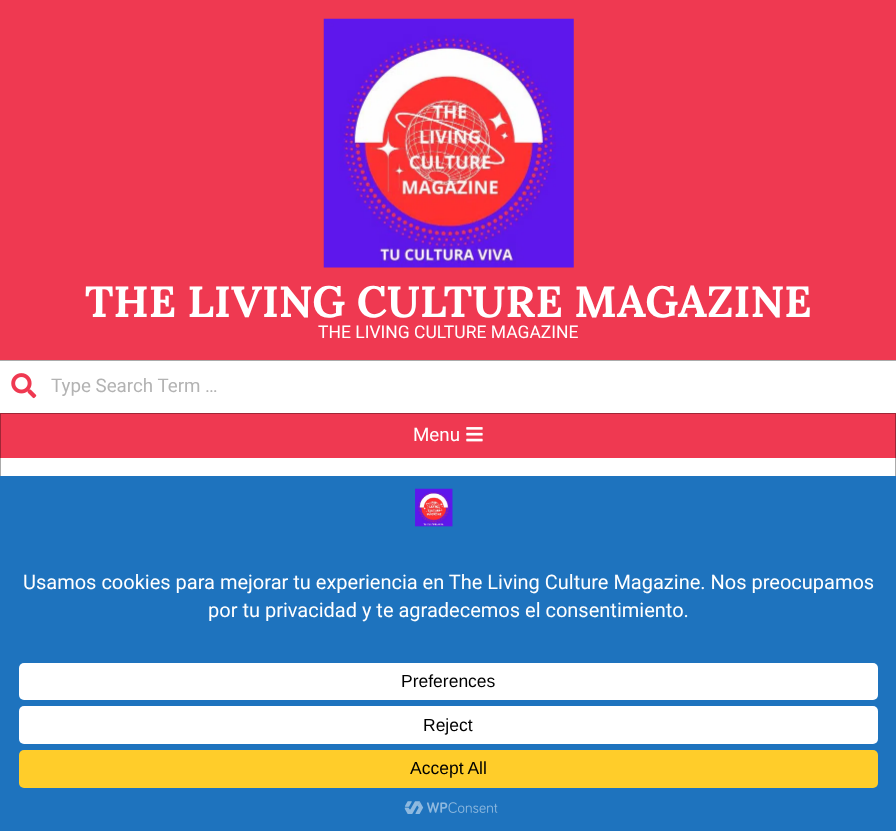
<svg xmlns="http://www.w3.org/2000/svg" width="896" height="831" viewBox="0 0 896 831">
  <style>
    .t1 { font: bold 43.75px Lora; fill: #fff; }
    .t2 { font: 17.5px Roboto; fill: #fff; }
    .t3 { font: 18.75px Roboto; fill: #b3b3b3; }
    .t4 { font: 18.75px Roboto; fill: #fff; }
    .t5 { font: 20px Roboto; fill: #fff; }
    .t6 { font: 17.5px Liberation Sans; fill: #000; }
  </style>
  <rect width="100%" height="100%" fill="#fff"/>
  <rect x="0" y="0" width="896" height="360" fill="#ef3951"/>
  <image x="323" y="18" width="251" height="250" href="images/1.png"/>
  <text x="85" y="317" class="t1">THE LIVING CULTURE MAGAZINE</text>
  <text x="318" y="338" class="t2">THE LIVING CULTURE MAGAZINE</text>
  <rect x="0" y="360" width="896" height="1" fill="#ababab"/>
  <image x="11" y="373" width="26" height="26" href="images/2.png"/>
  <text x="51" y="392" class="t3">Type Search Term …</text>
  <rect x="1" y="414" width="894" height="44" fill="#ef3951"/>
  <rect x="895" y="413" width="1" height="45" fill="#a02636"/>
  <rect x="0" y="413" width="1" height="45" fill="#a02636"/>
  <rect x="1" y="413" width="894" height="1" fill="#a02636"/>
  <text x="413" y="441" class="t4">Menu</text>
  <image x="466" y="427" width="17" height="15" href="images/3.png"/>
  <rect x="895" y="458" width="1" height="18" fill="#ababab"/>
  <rect x="0" y="458" width="1" height="18" fill="#ababab"/>
  <rect x="0" y="476" width="896" height="355" fill="#1e73be"/>
  <image x="415" y="488" width="38" height="39" href="images/4.png"/>
  <text x="23" y="589" class="t5">Usamos cookies para mejorar tu experiencia en The Living Culture Magazine. Nos preocupamos</text>
  <text x="208" y="617" class="t5">por tu privacidad y te agradecemos el consentimiento.</text>
  <rect x="19" y="663" width="859" height="37" rx="5" fill="#fff"/>
  <text x="401" y="687" class="t6">Preferences</text>
  <rect x="19" y="706" width="859" height="38" rx="5" fill="#fff"/>
  <text x="423" y="731" class="t6">Reject</text>
  <rect x="19" y="750" width="859" height="38" rx="5" fill="#ffcd2a"/>
  <text x="410" y="774" class="t6">Accept All</text>
  <image x="404" y="801" width="94" height="13" href="images/5.png"/>
</svg>
